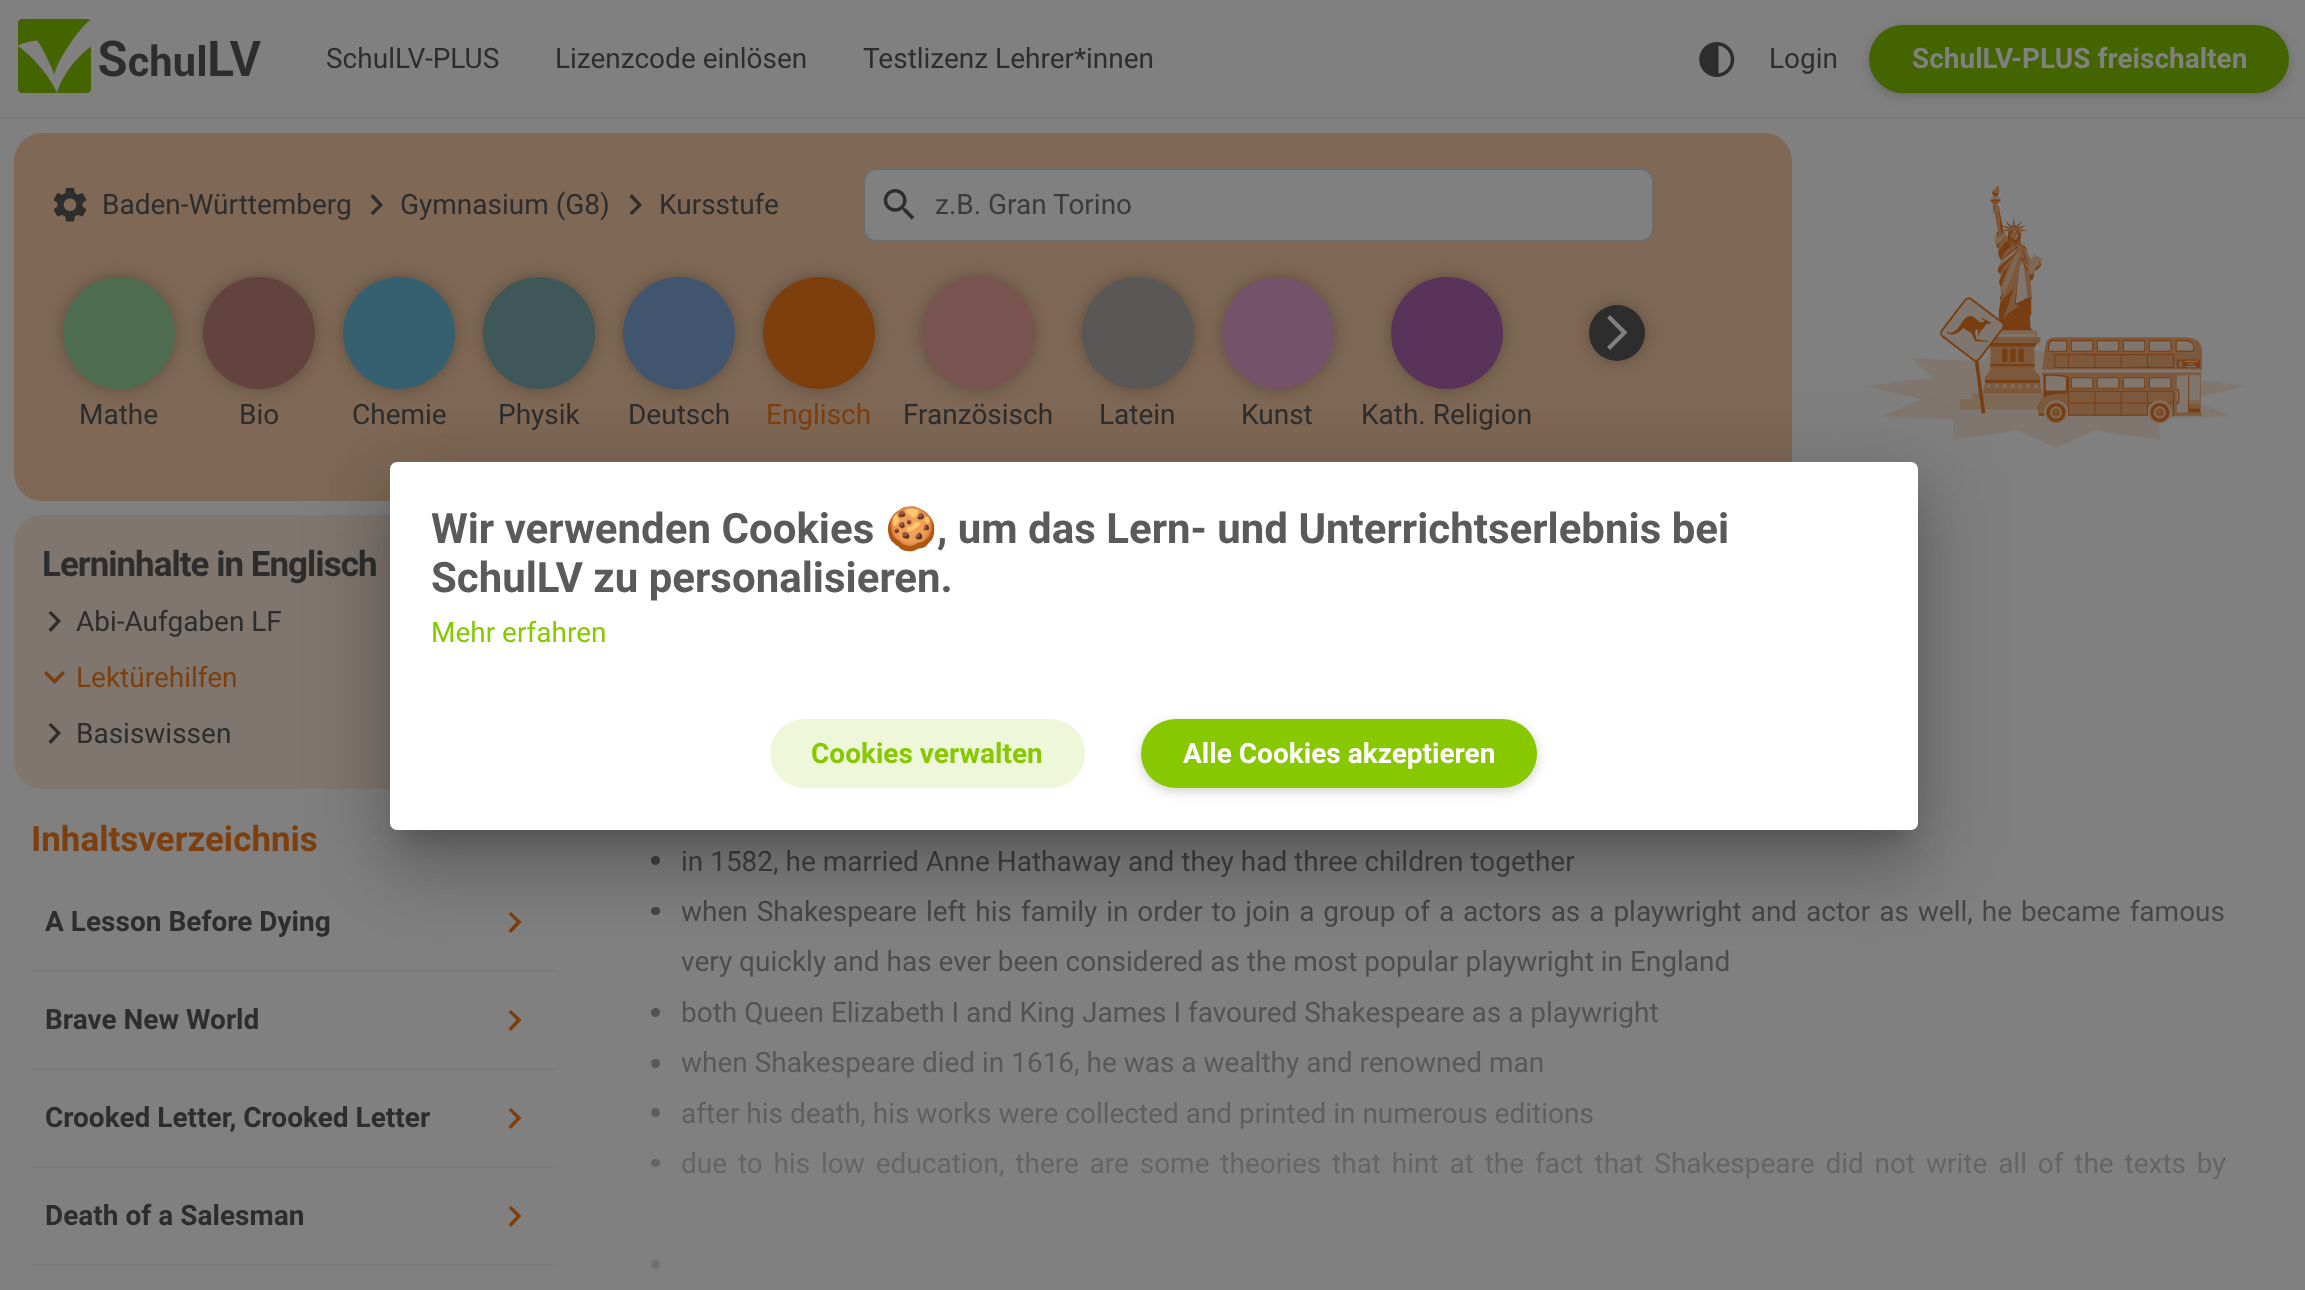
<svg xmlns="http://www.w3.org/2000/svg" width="2305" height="1290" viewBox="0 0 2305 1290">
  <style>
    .t1 { font: 28px Roboto; fill: #2d2d2d; }
    .t2 { font: bold 28px Roboto; fill: #808080; }
    .t3 { font: 28px Roboto; fill: #3b3b3b; }
    .t4 { font: 28px Roboto; fill: #7d3f0d; }
    .t5 { font: bold 35px Roboto; letter-spacing: -1px; fill: #2d2d2d; }
    .t6 { font: bold 35px Roboto; fill: #7d3f0d; }
    .t7 { font: bold 28px Roboto; fill: #2d2d2d; }
    .t8 { font: bold 42px Roboto; fill: #5a5a5a; }
    .t9 { font: bold 42px Noto Color Emoji; fill: #5a5a5a; }
    .t10 { font: 28px Roboto; fill: #87c800; }
    .t11 { font: bold 28px Roboto; fill: #87c800; }
    .t12 { font: bold 28px Roboto; fill: #fff; }
  </style>
  <defs>
    <linearGradient id="g1" gradientUnits="userSpaceOnUse" x1="1431" y1="696" x2="1431" y2="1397"><stop offset="0" stop-color="#808080" stop-opacity="0"/><stop offset="1" stop-color="#808080"/></linearGradient>
  </defs>
  <rect width="100%" height="100%" fill="#808080"/>
  <rect x="0" y="117" width="2305" height="2" fill="#7a7a7a"/>
  <image x="18" y="19" width="243" height="74" href="images/1.png"/>
  <text x="326" y="68" class="t1">SchulLV-PLUS</text>
  <text x="555" y="68" class="t1">Lizenzcode einlösen</text>
  <text x="863" y="68" class="t1">Testlizenz Lehrer*innen</text>
  <image x="1699" y="42" width="36" height="35" href="images/2.png"/>
  <text x="1769" y="68" class="t1">Login</text>
  <rect x="1869" y="28" width="420" height="68" rx="34" fill="#45474066" filter="blur(6px)"/>
  <rect x="1869" y="25" width="420" height="68" rx="34" fill="#446400"/>
  <text x="1912" y="68" class="t2">SchulLV-PLUS freischalten</text>
  <rect x="14" y="133" width="1778" height="368" rx="28" fill="#7f6855"/>
  <image x="53" y="187" width="34" height="35" href="images/3.png"/>
  <text x="102" y="214" class="t1">Baden-Württemberg</text>
  <path d="M370.5 213L378.5 205L370.5 196.5L373 194L383 205L373 215Z" fill="#2d2d2d"/>
  <text x="400" y="214" class="t1">Gymnasium (G8)</text>
  <path d="M629.5 213L637.5 205L629.5 196.5L632 194L642 205L632 215Z" fill="#2d2d2d"/>
  <text x="659" y="214" class="t1">Kursstufe</text>
  <rect x="864" y="169" width="789" height="72" rx="13" fill="#808080" stroke="#6d6d6d" stroke-width="2"/>
  <image x="883" y="189" width="32" height="31" href="images/4.png"/>
  <text x="935" y="214" class="t3">z.B. Gran Torino</text>
  <rect x="1589" y="305" width="56" height="56" rx="28" fill="#00000040" filter="blur(9px)"/>
  <circle cx="1617" cy="333" r="28" fill="#2d2d2d"/>
  <path d="M1607 347L1610 350L1627.5 332.5L1610 315L1607 318L1621.5 332.5Z" fill="#808080"/>
  <rect x="63" y="277" width="112" height="112" rx="56" fill="#00000040" filter="blur(9px)"/>
  <circle cx="119" cy="333" r="56" fill="#4d6c50"/>
  <text x="79" y="424" class="t1">Mathe</text>
  <rect x="203" y="277" width="112" height="112" rx="56" fill="#00000040" filter="blur(9px)"/>
  <circle cx="259" cy="333" r="56" fill="#63433d"/>
  <text x="239" y="424" class="t1">Bio</text>
  <rect x="343" y="277" width="112" height="112" rx="56" fill="#00000040" filter="blur(9px)"/>
  <circle cx="399" cy="333" r="56" fill="#34606f"/>
  <text x="352" y="424" class="t1">Chemie</text>
  <rect x="483" y="277" width="112" height="112" rx="56" fill="#00000040" filter="blur(9px)"/>
  <circle cx="539" cy="333" r="56" fill="#40575a"/>
  <text x="498" y="424" class="t1">Physik</text>
  <rect x="623" y="277" width="112" height="112" rx="56" fill="#00000040" filter="blur(9px)"/>
  <circle cx="679" cy="333" r="56" fill="#41556f"/>
  <text x="628" y="424" class="t1">Deutsch</text>
  <rect x="763" y="277" width="112" height="112" rx="56" fill="#00000040" filter="blur(9px)"/>
  <circle cx="819" cy="333" r="56" fill="#7d3f0d"/>
  <text x="766" y="424" class="t4">Englisch</text>
  <rect x="922" y="277" width="112" height="112" rx="56" fill="#00000040" filter="blur(9px)"/>
  <circle cx="978" cy="333" r="56" fill="#795350"/>
  <text x="903" y="424" class="t1">Französisch</text>
  <rect x="1082" y="277" width="112" height="112" rx="56" fill="#00000040" filter="blur(9px)"/>
  <circle cx="1138" cy="333" r="56" fill="#595856"/>
  <text x="1099" y="424" class="t1">Latein</text>
  <rect x="1222" y="277" width="112" height="112" rx="56" fill="#00000040" filter="blur(9px)"/>
  <circle cx="1278" cy="333" r="56" fill="#74536a"/>
  <text x="1241" y="424" class="t1">Kunst</text>
  <rect x="1391" y="277" width="112" height="112" rx="56" fill="#00000040" filter="blur(9px)"/>
  <circle cx="1447" cy="333" r="56" fill="#5a335a"/>
  <text x="1361" y="424" class="t1">Kath. Religion</text>
  <image x="1867" y="186" width="378" height="262" href="images/5.png"/>
  <rect x="14" y="515" width="555" height="274" rx="28" fill="#7f766f"/>
  <text x="42" y="576" class="t5">Lerninhalte in Englisch</text>
  <path d="M48.5 629.5L56.5 621L48.5 613L51 611L61 621L51 632Z" fill="#2d2d2d"/>
  <text x="76" y="631" class="t1">Abi-Aufgaben LF</text>
  <path d="M46.5 671L54.5 679L62.5 671L65 673.5L54.5 684L44 673.5Z" fill="#7d3f0d"/>
  <text x="76" y="687" class="t4">Lektürehilfen</text>
  <path d="M48.5 741.5L56.5 733L48.5 725L51 723L61 733L51 744Z" fill="#2d2d2d"/>
  <text x="76" y="743" class="t1">Basiswissen</text>
  <text x="31" y="851" class="t6">Inhaltsverzeichnis</text>
  <rect x="32" y="970" width="525" height="2" fill="#7a7a7a"/>
  <text x="45" y="931" class="t7">A Lesson Before Dying</text>
  <path d="M511 912L508.5 914L516.5 922L508.5 930.5L511 933L521.5 922Z" fill="#7d3f0d"/>
  <rect x="32" y="1068" width="525" height="2" fill="#7a7a7a"/>
  <text x="45" y="1029" class="t7">Brave New World</text>
  <path d="M511 1010L508.5 1012L516.5 1020L508.5 1028.5L511 1031L521.5 1020Z" fill="#7d3f0d"/>
  <rect x="32" y="1166" width="525" height="2" fill="#7a7a7a"/>
  <text x="45" y="1127" class="t7">Crooked Letter, Crooked Letter</text>
  <path d="M511 1108L508.5 1110L516.5 1118L508.5 1126.5L511 1129L521.5 1118Z" fill="#7d3f0d"/>
  <rect x="32" y="1264" width="525" height="2" fill="#7a7a7a"/>
  <text x="45" y="1225" class="t7">Death of a Salesman</text>
  <path d="M511 1206L508.5 1208L516.5 1216L508.5 1224.5L511 1227L521.5 1216Z" fill="#7d3f0d"/>
  <circle cx="655.5" cy="860.5" r="4.5" fill="#2d2d2d"/>
  <text x="681" y="871" class="t1">in 1582, he married Anne Hathaway and they had three children together</text>
  <rect x="651" y="907" width="9" height="8" rx="4" fill="#2d2d2d"/>
  <text x="681" y="921" word-spacing="2" class="t1">when Shakespeare left his family in order to join a group of a actors as a playwright and actor as well, he became famous</text>
  <text x="681" y="971" class="t1">very quickly and has ever been considered as the most popular playwright in England</text>
  <circle cx="655.5" cy="1012.5" r="4.5" fill="#2d2d2d"/>
  <text x="681" y="1022" class="t1">both Queen Elizabeth I and King James I favoured Shakespeare as a playwright</text>
  <circle cx="655.5" cy="1063.5" r="4.5" fill="#2d2d2d"/>
  <text x="681" y="1072" class="t1">when Shakespeare died in 1616, he was a wealthy and renowned man</text>
  <circle cx="655.5" cy="1112.5" r="4.5" fill="#2d2d2d"/>
  <text x="681" y="1123" class="t1">after his death, his works were collected and printed in numerous editions</text>
  <rect x="651" y="1159" width="9" height="8" rx="4" fill="#2d2d2d"/>
  <text x="681" y="1173" word-spacing="3.9" class="t1">due to his low education, there are some theories that hint at the fact that Shakespeare did not write all of the texts by</text>
  <circle cx="655.5" cy="1264.5" r="4.5" fill="#2d2d2d"/>
  <rect x="555" y="850" width="1669" height="419" fill="url(#g1)"/>
  <rect x="376" y="464" width="1556" height="395" rx="21" fill="#0000001f" filter="blur(40px)"/>
  <rect x="385" y="499" width="1538" height="378" rx="12" fill="#00000024" filter="blur(33px)"/>
  <rect x="403" y="494" width="1503" height="343" fill="#00000033" filter="blur(13px)"/>
  <rect x="390" y="462" width="1528" height="368" rx="7" fill="#fff"/>
  <text x="431" y="543" class="t8">Wir verwenden Cookies</text>
  <text x="885" y="543" class="t9">🍪</text>
  <text x="937" y="543" class="t8">, um das Lern- und Unterrichtserlebnis bei</text>
  <text x="431" y="592" class="t8">SchulLV zu personalisieren.</text>
  <text x="431" y="642" class="t10">Mehr erfahren</text>
  <rect x="770" y="719" width="315" height="69" rx="34.5" fill="#eef7da"/>
  <text x="811" y="763" class="t11">Cookies verwalten</text>
  <rect x="1141" y="723" width="396" height="68" rx="34" fill="#898d8066" filter="blur(6px)"/>
  <rect x="1141" y="719" width="396" height="69" rx="34.5" fill="#87c800"/>
  <text x="1183" y="763" class="t12">Alle Cookies akzeptieren</text>
</svg>
